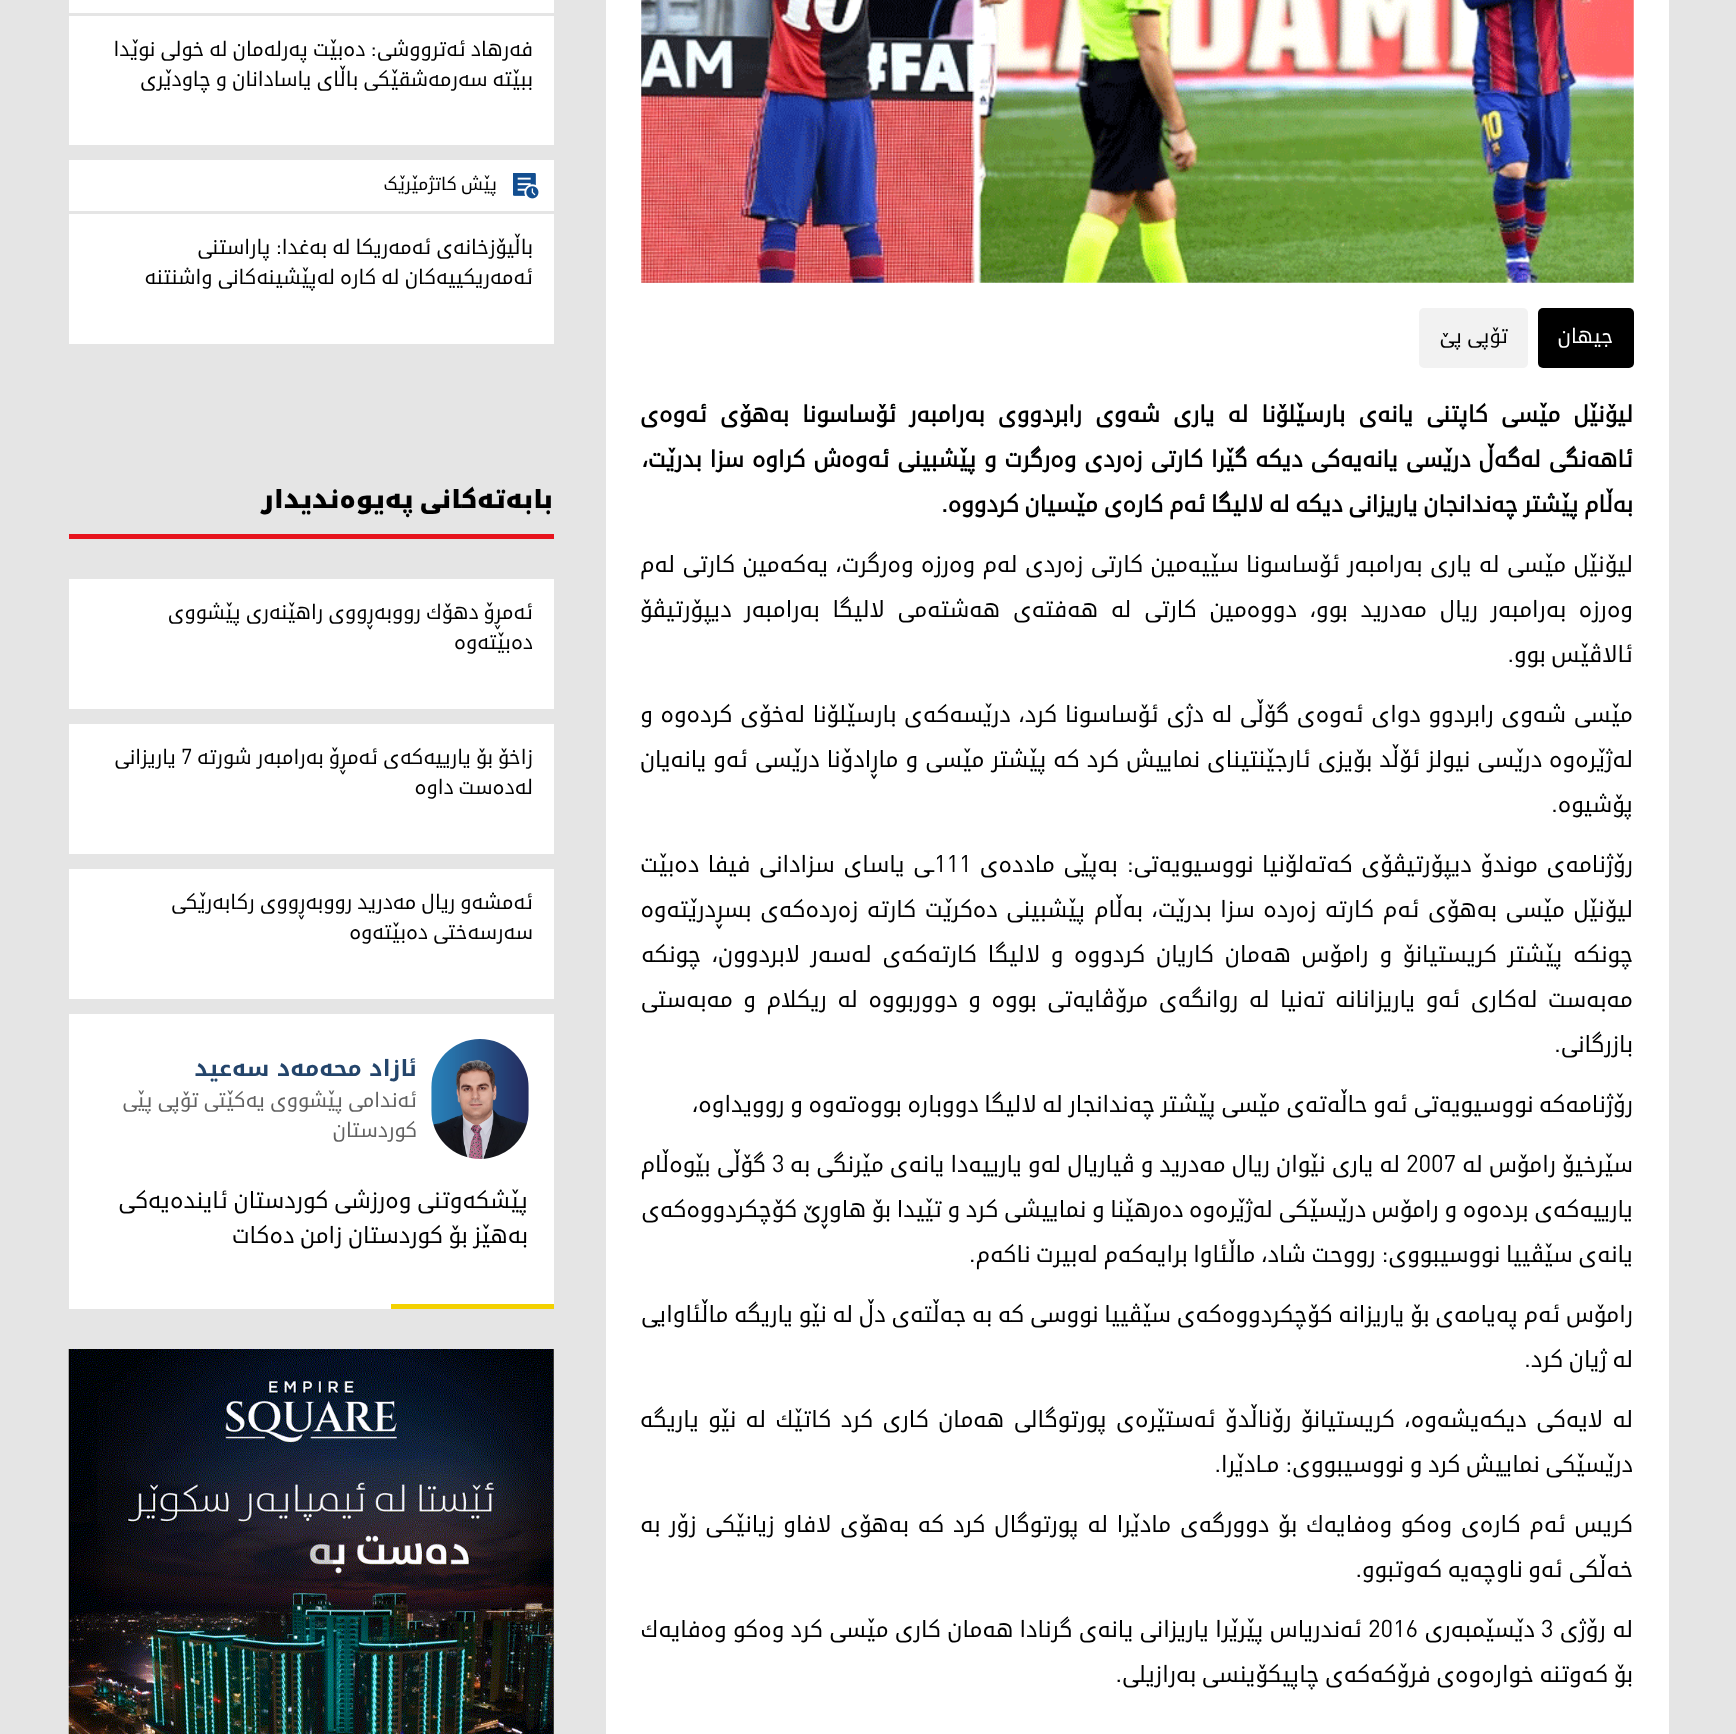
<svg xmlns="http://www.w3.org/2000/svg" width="1736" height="1734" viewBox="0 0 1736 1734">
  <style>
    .t1 { font: 20px 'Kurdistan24'; direction: rtl; fill: #fff; }
    .t2 { font: 20px 'Kurdistan24'; direction: rtl; fill: #000; }
    .t3 { font: bold 22.5px 'Kurdistan24'; direction: rtl; fill: #000; }
    .t4 { font: 22.5px 'Kurdistan24'; direction: rtl; fill: #000; }
    .t5 { font: 22.5px 'Kurdistan24'; fill: #000; }
    .t6 { font: 17.5px 'Kurdistan24'; direction: rtl; fill: #000; }
    .t7 { font: bold 25px 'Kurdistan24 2'; direction: rtl; fill: #000; }
    .t8 { font: 20px 'Kurdistan24'; fill: #000; }
    .t9 { font: 500 22.5px 'Kurdistan24'; direction: rtl; fill: #24456b; }
    .t10 { font: 20px 'Kurdistan24'; direction: rtl; fill: #616161; }
  </style>
  <rect width="100%" height="100%" fill="#e5e5e5"/>
  <rect x="606" y="0" width="1063" height="1734" fill="#fff"/>
  <image x="641" y="0" width="993" height="283" href="images/1.png"/>
  <rect x="1538" y="308" width="96" height="60" rx="5" fill="#000"/>
  <text x="1613" y="343" class="t1">جیهان</text>
  <rect x="1419" y="308" width="109" height="60" rx="5" fill="#f2f2f2"/>
  <text x="1508" y="343" class="t2">تۆپی پێ</text>
  <text x="1633" y="422" word-spacing="7.5" class="t3">لیۆنێل مێسی كاپتنی یانه‌ی بارسێلۆنا له‌ یاری شه‌وی رابردووی به‌رامبه‌ر ئۆساسونا به‌هۆی ئه‌وه‌ی</text>
  <text x="1633" y="467" word-spacing="2.25" class="t3">ئاهه‌نگی له‌گه‌ڵ درێسی یانه‌یه‌كی دیكه‌ گێرا كارتی زه‌ردی وه‌رگرت و پێشبینی ئه‌وه‌ش كراوه‌ سزا بدرێت،</text>
  <text x="1633" y="512" class="t3">به‌ڵام پێشتر چه‌ندانجان یاریزانی دیكه‌ له‌ لالیگا ئه‌م كاره‌ی مێسیان كردووه‌.</text>
  <text x="1633" y="572" word-spacing="1.7" class="t4">لیۆنێل مێسی له‌ یاری به‌رامبه‌ر ئۆساسونا سێیه‌مین كارتی زه‌ردی له‌م وه‌رزه‌ وه‌رگرت، یه‌كه‌مین كارتی له‌م</text>
  <text x="1633" y="617" word-spacing="7.1" class="t4">وه‌رزه‌ به‌رامبه‌ر ریال مه‌درید بوو، دووه‌مین كارتی له‌ هه‌فته‌ی هه‌شته‌می لالیگا به‌رامبه‌ر دیپۆرتیڤۆ</text>
  <text x="1633" y="662" class="t4">ئالاڤێس بوو.</text>
  <text x="1633" y="722" word-spacing="2" class="t4">مێسی شه‌وی رابردوو دوای ئه‌وه‌ی گۆڵی له‌ دژی ئۆساسونا كرد، درێسه‌كه‌ی بارسێلۆنا له‌خۆی كرده‌وه‌ و</text>
  <text x="1633" y="767" word-spacing="1.4" class="t4">له‌ژێره‌وه‌ درێسی نیولز ئۆڵد بۆیزی ئارجێنتینای نماییش كرد كه‌ پێشتر مێسی و ماڕادۆنا درێسی ئه‌و یانه‌یان</text>
  <text x="1633" y="812" class="t4">پۆشیوه‌.</text>
  <text x="1633" y="872" word-spacing="3" class="t4">رۆژنامه‌ی موندۆ دیپۆرتیڤۆی كه‌ته‌لۆنیا نووسیویه‌تی: به‌پێی مادده‌ی</text>
  <text x="934" y="872" class="t5">111</text>
  <text x="934" y="872" word-spacing="3" class="t4">ـی یاسای سزادانی فیفا ده‌بێت</text>
  <text x="1633" y="917" word-spacing="3" class="t4">لیۆنێل مێسی به‌هۆی ئه‌م كارته‌ زه‌رده‌ سزا بدرێت، به‌ڵام پێشبینی ده‌كرێت كارته‌ زه‌رده‌كه‌ی بسڕدرێته‌وه‌</text>
  <text x="1633" y="962" word-spacing="5.1" class="t4">چونكه‌ پێشتر كریستیانۆ و رامۆس هه‌مان كاریان كردووه‌ و لالیگا كارته‌كه‌ی له‌سه‌ر لابردوون، چونكه‌</text>
  <text x="1633" y="1007" word-spacing="4.9" class="t4">مه‌به‌ست له‌كاری ئه‌و یاریزانانه‌ ته‌نیا له‌ روانگه‌ی مرۆڤایه‌تی بووه‌ و دووربووه‌ له‌ ریكلام و مه‌به‌ستی</text>
  <text x="1633" y="1052" class="t4">بازرگانی.</text>
  <text x="1633" y="1112" class="t4">رۆژنامه‌كه‌ نووسیویه‌تی ئه‌و حاڵه‌ته‌ی مێسی پێشتر چه‌ندانجار له‌ لالیگا دووباره‌ بووه‌ته‌وه‌ و روویداوه‌،</text>
  <text x="1633" y="1172" word-spacing="0.4" class="t4">سێرخیۆ رامۆس له‌</text>
  <text x="1406" y="1172" class="t5">2007</text>
  <text x="1400" y="1172" word-spacing="0.4" class="t4">له‌ یاری نێوان ریال مه‌درید و ڤیاریال له‌و یارییه‌دا یانه‌ی مێرنگی به‌</text>
  <text x="772" y="1172" class="t5">3</text>
  <text x="766" y="1172" word-spacing="0.4" class="t4">گۆڵی بێوه‌ڵام</text>
  <text x="1633" y="1217" class="t4">یارییه‌كه‌ی برده‌وه‌ و رامۆس درێسێكی له‌ژێره‌وه‌ ده‌رهێنا و نماییشی كرد و تێیدا بۆ هاوڕێ كۆچكردووه‌كه‌ی</text>
  <text x="1633" y="1262" class="t4">یانه‌ی سێڤییا نووسیبووی: رووحت شاد، ماڵئاوا برایه‌كه‌م له‌بیرت ناكه‌م.</text>
  <text x="1633" y="1322" word-spacing="0.1" class="t4">رامۆس ئه‌م په‌یامه‌ی بۆ یاریزانه‌ كۆچكردووه‌كه‌ی سێڤییا نووسی كه‌ به‌ جه‌ڵته‌ی دڵ له‌ نێو یاریگه‌ ماڵئاوایی</text>
  <text x="1633" y="1367" class="t4">له‌ ژیان كرد.</text>
  <text x="1633" y="1427" word-spacing="3.75" class="t4">له‌ لایه‌كی دیكه‌یشه‌وه‌، كریستیانۆ رۆناڵدۆ ئه‌ستێره‌ی پورتوگالی هه‌مان كاری كرد كاتێك له‌ نێو یاریگه‌</text>
  <text x="1633" y="1472" class="t4">درێسێكی نماییش كرد و نووسیبووی: مـادێرا.</text>
  <text x="1633" y="1532" word-spacing="3.1" class="t4">كریس ئه‌م كاره‌ی وه‌كو وه‌فایه‌ك بۆ دوورگه‌ی مادێرا له‌ پورتوگال كرد كه‌ به‌هۆی لافاو زیانێكی زۆر به‌</text>
  <text x="1633" y="1577" class="t4">خه‌ڵكی ئه‌و ناوچه‌یه‌ كه‌وتبوو.</text>
  <text x="1633" y="1637" word-spacing="1" class="t4">له‌ رۆژی</text>
  <text x="1541" y="1637" class="t5">3</text>
  <text x="1535" y="1637" class="t4">دێسێمبه‌ری</text>
  <text x="1368" y="1637" class="t5">2016</text>
  <text x="1362" y="1637" word-spacing="0.6" class="t4">ئه‌ندریاس پێرێرا یاریزانی یانه‌ی گرنادا هه‌مان كاری مێسی كرد وه‌كو وه‌فایه‌ك</text>
  <text x="1633" y="1682" class="t4">بۆ كه‌وتنه‌ خواره‌وه‌ی فرۆكه‌كه‌ی چاپیكۆینسی به‌رازیلی.</text>
  <rect x="69" y="0" width="485" height="145" fill="#fff"/>
  <rect x="69" y="13" width="485" height="3" fill="#e5e5e5"/>
  <text x="533" y="56" class="t2">فەرهاد ئەترووشی: دەبێت پەرلەمان لە خولی نوێدا</text>
  <text x="533" y="86" class="t2">ببێتە سەرمەشقێکی باڵای یاسادانان و چاودێری</text>
  <rect x="69" y="160" width="485" height="184" fill="#fff"/>
  <rect x="69" y="211" width="485" height="3" fill="#e5e5e5"/>
  <image x="513" y="173" width="26" height="26" href="images/2.png"/>
  <text x="497" y="190" class="t6">پێش کاتژمێرێک</text>
  <text x="533" y="254" class="t2">باڵیۆزخانەی ئەمەریکا لە بەغدا: پاراستنی</text>
  <text x="533" y="284" class="t2">ئەمەریکییەکان لە کارە لەپێشینەکانی واشنتنە</text>
  <rect x="69" y="534" width="485" height="5" fill="#e7131d"/>
  <text x="553" y="508" class="t7">بابەتەکانی پەیوەندیدار</text>
  <rect x="69" y="579" width="485" height="130" fill="#fff"/>
  <text x="533" y="619" class="t2">ئەمڕۆ دهۆك رووبەڕووی راهێنەری پێشووی</text>
  <text x="533" y="649" class="t2">دەبێتەوە</text>
  <rect x="69" y="724" width="485" height="130" fill="#fff"/>
  <text x="533" y="764" class="t2">زاخۆ بۆ یارییەكەی ئەمڕۆ بەرامبەر شورتە</text>
  <text x="181" y="764" class="t8">7</text>
  <text x="176" y="764" class="t2">یاریزانی</text>
  <text x="533" y="794" class="t2">لەدەست داوە</text>
  <rect x="69" y="869" width="485" height="130" fill="#fff"/>
  <text x="533" y="909" class="t2">ئەمشەو ریال مەدرید رووبەڕووی ركابەرێكی</text>
  <text x="533" y="939" class="t2">سەرسەختی دەبێتەوە</text>
  <rect x="69" y="1014" width="485" height="295" fill="#fff"/>
  <image x="431" y="1039" width="98" height="120" href="images/3.png"/>
  <text x="417" y="1076" class="t9">ئازاد محەمەد سەعید</text>
  <text x="417" y="1107" class="t10">ئەندامی پێشووی یەكێتی تۆپی پێی</text>
  <text x="417" y="1137" class="t10">كوردستان</text>
  <text x="528" y="1208" class="t4">پێشکەوتنی وەرزشی کوردستان ئایندەیەکی</text>
  <text x="528" y="1243" class="t4">بەھێز بۆ کوردستان زامن دەکات</text>
  <rect x="391" y="1304" width="163" height="5" fill="#f3d100"/>
  <image x="68" y="1349" width="486" height="385" href="images/4.png"/>
</svg>
